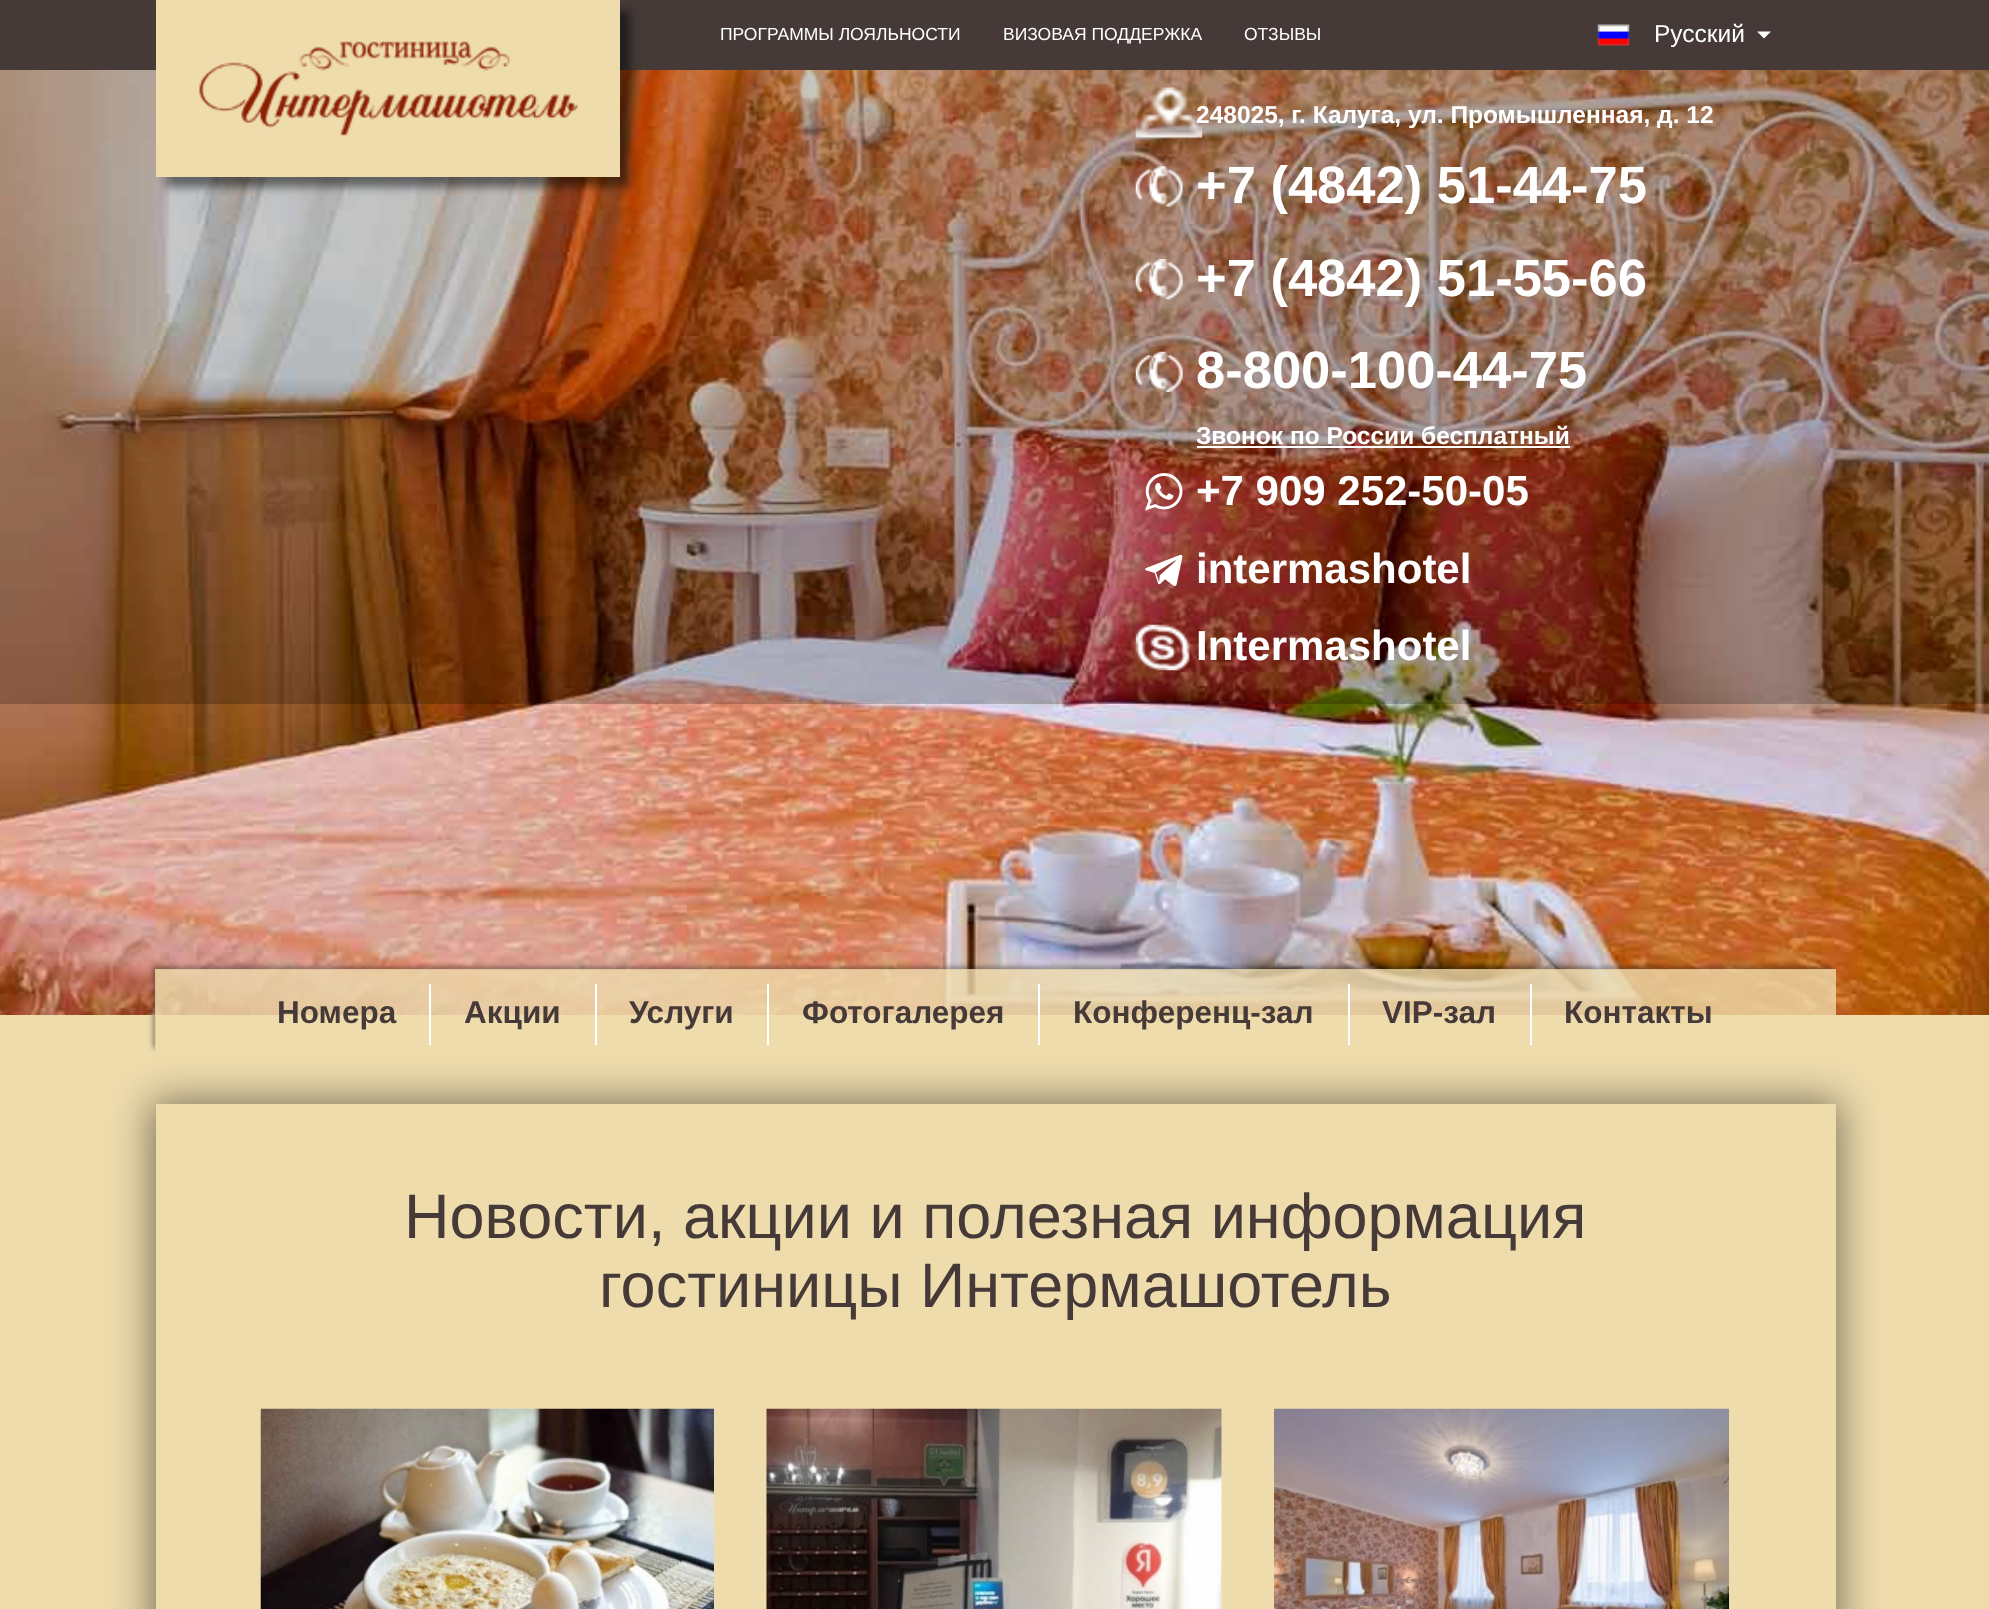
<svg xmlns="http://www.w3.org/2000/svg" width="1989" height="1609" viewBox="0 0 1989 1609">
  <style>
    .t1 { font: 17.5px Liberation Sans; fill: #fff; }
    .t2 { font: 24.5px Liberation Sans; fill: #fff; }
    .t3 { font: bold 24.5px Liberation Sans; fill: #fff; }
    .t4 { font: bold 52.5px Liberation Sans; fill: #fff; }
    .t5 { font: bold 42px Liberation Sans; fill: #fff; }
    .t6 { font: bold 31.5px Liberation Sans; fill: #453a38; }
    .t7 { font: 63px Liberation Sans; fill: #453a38; }
  </style>
  <defs>
    <clipPath id="clip1"><path d="M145 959H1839V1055H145ZM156 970H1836V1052H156Z" clip-rule="evenodd"/></clipPath>
  </defs>
  <rect width="100%" height="100%" fill="#eedcad"/>
  <image x="0" y="70" width="1989" height="945" href="images/1.png"/>
  <rect x="0" y="70" width="1989" height="634" fill="#00000038"/>
  <rect x="0" y="0" width="1989" height="70" fill="#453a38"/>
  <rect x="166" y="11" width="464" height="176" fill="#00000080" filter="blur(5px)"/>
  <rect x="156" y="0" width="464" height="177" fill="#eedcad"/>
  <image x="199" y="41" width="379" height="95" href="images/2.png"/>
  <text x="720" y="40" class="t1">ПРОГРАММЫ ЛОЯЛЬНОСТИ</text>
  <text x="1003" y="40" class="t1">ВИЗОВАЯ ПОДДЕРЖКА</text>
  <text x="1244" y="40" class="t1">ОТЗЫВЫ</text>
  <image x="1597" y="24" width="33" height="22" href="images/3.png"/>
  <text x="1654" y="42" class="t2">Русский</text>
  <path d="M1757 31.5H1771L1764 38.5Z" fill="#fff"/>
  <image x="1135" y="87" width="68" height="52" href="images/4.png"/>
  <text x="1196" y="123" class="t3">248025, г. Калуга, ул. Промышленная, д. 12</text>
  <image x="1135" y="166" width="49" height="41" href="images/5.png"/>
  <text x="1196" y="203" class="t4">+7 (4842) 51-44-75</text>
  <image x="1135" y="259" width="49" height="41" href="images/6.png"/>
  <text x="1196" y="296" class="t4">+7 (4842) 51-55-66</text>
  <image x="1135" y="351" width="49" height="41" href="images/7.png"/>
  <text x="1196" y="388" class="t4">8-800-100-44-75</text>
  <text x="1196" y="444" class="t3">Звонок по России бесплатный</text>
  <rect x="1197" y="446" width="373" height="2" fill="#fff"/>
  <image x="1145" y="473" width="38" height="38" href="images/8.png"/>
  <text x="1196" y="505" class="t5">+7 909 252-50-05</text>
  <image x="1145" y="554" width="38" height="32" href="images/9.png"/>
  <text x="1196" y="583" class="t5">intermashotel</text>
  <image x="1135" y="624" width="55" height="47" href="images/10.png"/>
  <text x="1196" y="660" class="t5">Intermashotel</text>
  <g clip-path="url(#clip1)">
    <rect x="152" y="966" width="1680" height="82" fill="#0000004d" filter="blur(2px)"/>
  </g>
  <rect x="155" y="969" width="1681" height="79" fill="#efdbadc9"/>
  <rect x="429" y="984" width="2" height="61" fill="#fff"/>
  <text x="277" y="1023" class="t6">Номера</text>
  <rect x="595" y="984" width="2" height="61" fill="#fff"/>
  <text x="464" y="1023" class="t6">Акции</text>
  <rect x="767" y="984" width="2" height="61" fill="#fff"/>
  <text x="629" y="1023" class="t6">Услуги</text>
  <rect x="1038" y="984" width="2" height="61" fill="#fff"/>
  <text x="802" y="1023" class="t6">Фотогалерея</text>
  <rect x="1348" y="984" width="2" height="61" fill="#fff"/>
  <text x="1073" y="1023" class="t6">Конференц-зал</text>
  <rect x="1530" y="984" width="2" height="61" fill="#fff"/>
  <text x="1382" y="1023" class="t6">VIP-зал</text>
  <text x="1564" y="1023" class="t6">Контакты</text>
  <rect x="152" y="1101" width="1687" height="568" fill="#00000080" filter="blur(20px)"/>
  <rect x="156" y="1104" width="1680" height="505" fill="#eedcad"/>
  <text x="404" y="1238" class="t7">Новости, акции и полезная информация</text>
  <text x="599" y="1307" class="t7">гостиницы Интермашотель</text>
  <image x="260" y="1408" width="454" height="201" href="images/11.png"/>
  <image x="766" y="1408" width="456" height="201" href="images/12.png"/>
  <image x="1274" y="1408" width="455" height="201" href="images/13.png"/>
</svg>
